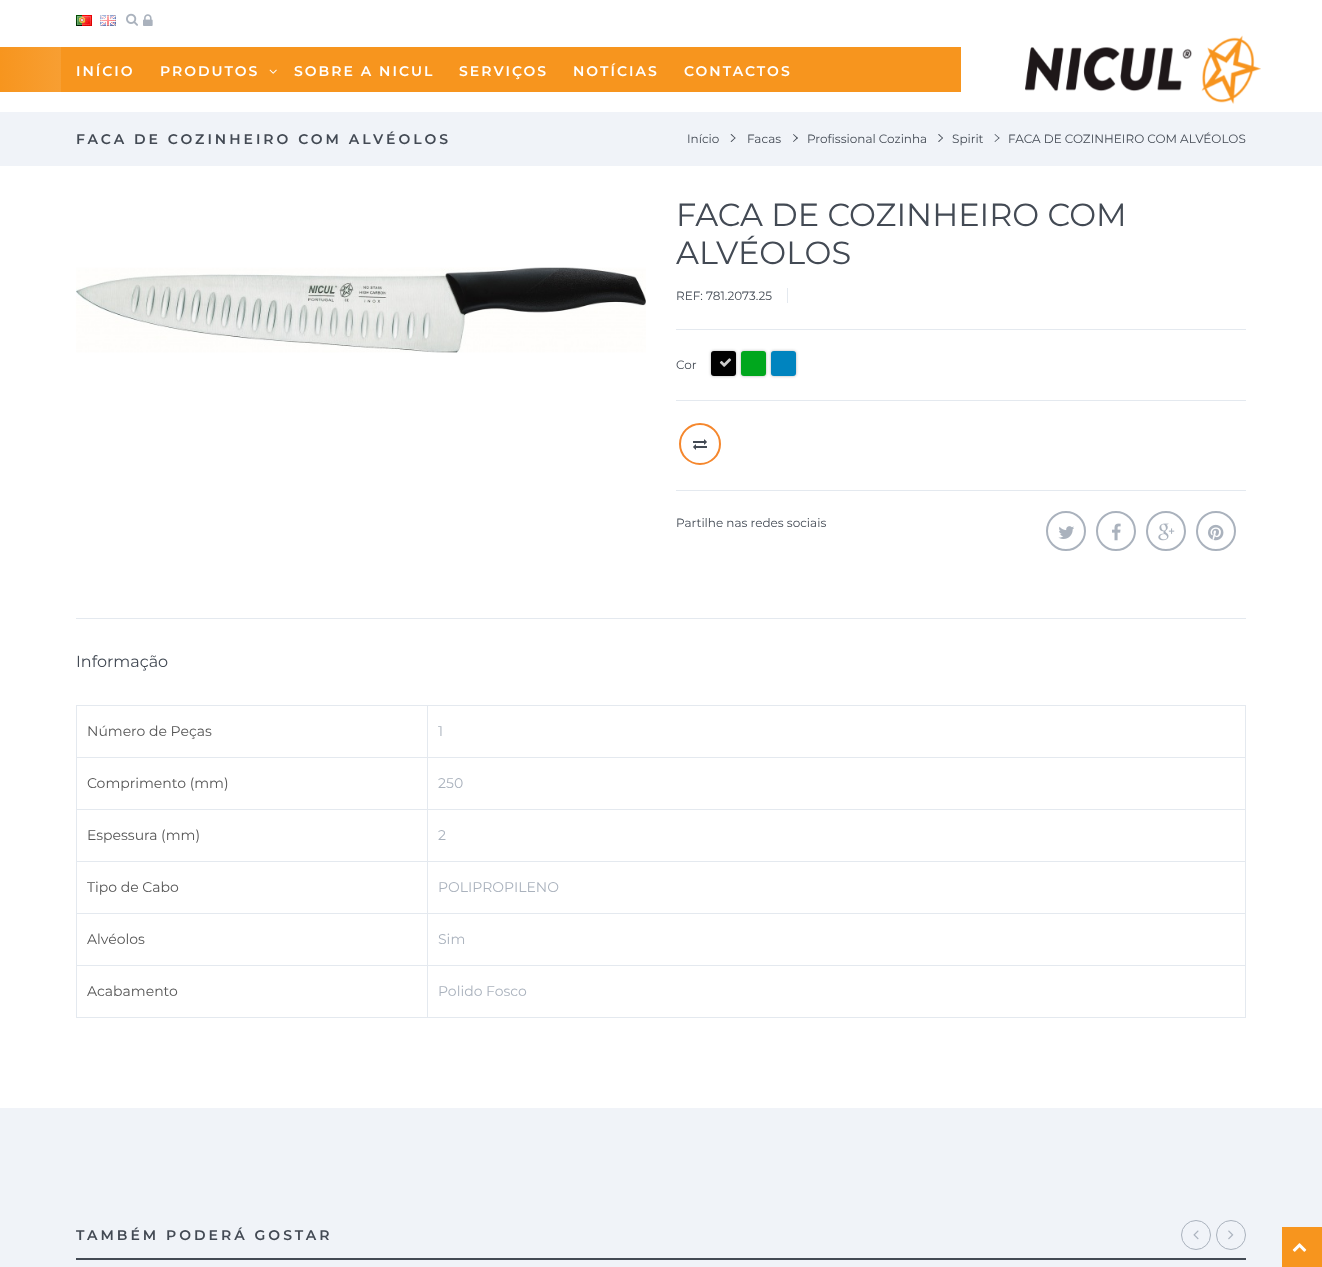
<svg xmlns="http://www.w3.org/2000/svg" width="1322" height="1267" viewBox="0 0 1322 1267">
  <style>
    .t1 { font: 600 14px Montserrat; letter-spacing: 2px; fill: #fff; }
    .t2 { font: 600 14px Montserrat; letter-spacing: 3px; fill: #434a54; }
    .t3 { font: 12px Montserrat; fill: #434a54; }
    .t4 { font: 32px Montserrat; fill: #434a54; }
    .t5 { font: 16px Montserrat; fill: #434a54; }
    .t6 { font: 14px Montserrat; fill: #555; }
    .t7 { font: 14px Montserrat; fill: #aab2bd; }
  </style>
  <defs>
    <linearGradient id="g1" gradientUnits="userSpaceOnUse" x1="0" y1="70" x2="1322" y2="69"><stop offset="0" stop-color="#f7951e"/><stop offset="0.51" stop-color="#fff"/><stop offset="1" stop-color="#fff"/></linearGradient>
  </defs>
  <rect width="100%" height="100%" fill="#fff"/>
  <image x="76" y="15" width="16" height="11" href="images/1.png"/>
  <image x="100" y="15" width="16" height="11" href="images/2.png"/>
  <image x="126" y="13" width="12" height="13" href="images/3.png"/>
  <image x="143" y="14" width="10" height="12" href="images/4.png"/>
  <rect x="0" y="47" width="667" height="45" fill="url(#g1)"/>
  <rect x="61" y="47" width="900" height="45" fill="#f7951e"/>
  <text x="76" y="76" class="t1">INÍCIO</text>
  <text x="160" y="76" class="t1">PRODUTOS</text>
  <image x="269" y="69" width="8" height="5" href="images/5.png"/>
  <text x="294" y="76" class="t1">SOBRE A NICUL</text>
  <text x="459" y="76" class="t1">SERVIÇOS</text>
  <text x="573" y="76" class="t1">NOTÍCIAS</text>
  <text x="684" y="76" class="t1">CONTACTOS</text>
  <image x="1025" y="35" width="236" height="69" href="images/6.png"/>
  <rect x="0" y="112" width="1322" height="54" fill="#f0f3f8"/>
  <text x="76" y="144" class="t2">FACA DE COZINHEIRO COM ALVÉOLOS</text>
  <text x="687" y="143" class="t3">Início</text>
  <path d="M731.5 134L735.5 138L735 138.5L730.5 134.5Z" fill="#434a54"/>
  <path d="M735 137.5L735.5 138L731.5 142L730.5 141.5Z" fill="#434a54"/>
  <text x="747" y="143" class="t3">Facas</text>
  <path d="M793.5 134L798 138L797 138.5L793 134.5Z" fill="#434a54"/>
  <path d="M797 137.5L798 138L793.5 142L793 141.5Z" fill="#434a54"/>
  <text x="807" y="143" class="t3">Profissional Cozinha</text>
  <path d="M939 134L943 138L942.5 138.5L938 134.5Z" fill="#434a54"/>
  <path d="M942.5 137.5L943 138L939 142L938 141.5Z" fill="#434a54"/>
  <text x="952" y="143" class="t3">Spirit</text>
  <path d="M995 134L999.5 138L999 138.5L994.5 134.5Z" fill="#434a54"/>
  <path d="M999 137.5L999.5 138L995 142L994.5 141.5Z" fill="#434a54"/>
  <text x="1008" y="143" class="t3">FACA DE COZINHEIRO COM ALVÉOLOS</text>
  <image x="76" y="267" width="570" height="86" href="images/7.png"/>
  <text x="676" y="226" class="t4">FACA DE COZINHEIRO COM</text>
  <text x="676" y="264" class="t4">ALVÉOLOS</text>
  <text x="676" y="300" class="t3">REF: 781.2073.25</text>
  <rect x="787" y="288" width="1" height="15" fill="#e4e9ef"/>
  <rect x="676" y="329" width="570" height="1" fill="#e4e9ef"/>
  <rect x="676" y="400" width="570" height="1" fill="#e4e9ef"/>
  <text x="676" y="369" class="t3">Cor</text>
  <rect x="711" y="351" width="25" height="25" rx="3" fill="#0000004d" filter="blur(1.5px)"/>
  <rect x="711" y="351" width="25" height="25" rx="3" fill="#000"/>
  <image x="719" y="358" width="13" height="9" href="images/8.png"/>
  <rect x="741" y="351" width="25" height="25" rx="3" fill="#0000004d" filter="blur(1.5px)"/>
  <rect x="741" y="351" width="25" height="25" rx="3" fill="#00a71d"/>
  <rect x="771" y="351" width="25" height="25" rx="3" fill="#0000004d" filter="blur(1.5px)"/>
  <rect x="771" y="351" width="25" height="25" rx="3" fill="#0084bf"/>
  <circle cx="700" cy="444" r="20" fill="none" stroke="#f5872d" stroke-width="2"/>
  <image x="693" y="439" width="14" height="11" href="images/9.png"/>
  <rect x="676" y="490" width="570" height="1" fill="#e4e9ef"/>
  <text x="676" y="527" class="t3">Partilhe nas redes sociais</text>
  <circle cx="1066" cy="531" r="19" fill="none" stroke="#aab2bd" stroke-width="2"/>
  <image x="1058" y="526" width="16" height="13" href="images/10.png"/>
  <circle cx="1116" cy="531" r="19" fill="none" stroke="#aab2bd" stroke-width="2"/>
  <image x="1112" y="523" width="9" height="18" href="images/11.png"/>
  <circle cx="1166" cy="531" r="19" fill="none" stroke="#aab2bd" stroke-width="2"/>
  <image x="1158" y="523" width="17" height="18" href="images/12.png"/>
  <circle cx="1216" cy="531" r="19" fill="none" stroke="#aab2bd" stroke-width="2"/>
  <image x="1208" y="524" width="16" height="17" href="images/13.png"/>
  <rect x="76" y="618" width="1170" height="1" fill="#e4e9ef"/>
  <text x="76" y="667" class="t5">Informação</text>
  <rect x="76" y="705" width="1170" height="1" fill="#e4e9ef"/>
  <rect x="1245" y="705" width="1" height="313" fill="#e4e9ef"/>
  <rect x="76" y="1017" width="1170" height="1" fill="#e4e9ef"/>
  <rect x="76" y="705" width="1" height="313" fill="#e4e9ef"/>
  <text x="87" y="736" class="t6">Número de Peças</text>
  <text x="438" y="736" class="t7">1</text>
  <rect x="76" y="757" width="1170" height="1" fill="#e4e9ef"/>
  <text x="87" y="788" class="t6">Comprimento (mm)</text>
  <text x="438" y="788" class="t7">250</text>
  <rect x="76" y="809" width="1170" height="1" fill="#e4e9ef"/>
  <text x="87" y="840" class="t6">Espessura (mm)</text>
  <text x="438" y="840" class="t7">2</text>
  <rect x="76" y="861" width="1170" height="1" fill="#e4e9ef"/>
  <text x="87" y="892" class="t6">Tipo de Cabo</text>
  <text x="438" y="892" class="t7">POLIPROPILENO</text>
  <rect x="76" y="913" width="1170" height="1" fill="#e4e9ef"/>
  <text x="87" y="944" class="t6">Alvéolos</text>
  <text x="438" y="944" class="t7">Sim</text>
  <rect x="76" y="965" width="1170" height="1" fill="#e4e9ef"/>
  <rect x="427" y="705" width="1" height="313" fill="#e4e9ef"/>
  <text x="87" y="996" class="t6">Acabamento</text>
  <text x="438" y="996" class="t7">Polido Fosco</text>
  <rect x="0" y="1108" width="1322" height="159" fill="#f0f3f8"/>
  <rect x="76" y="1258" width="1170" height="2" fill="#434a54"/>
  <text x="76" y="1240" class="t2">TAMBÉM PODERÁ GOSTAR</text>
  <circle cx="1196" cy="1235" r="14.5" fill="none" stroke="#aab2bd"/>
  <image x="1193" y="1230" width="6" height="10" href="images/14.png"/>
  <circle cx="1231" cy="1235" r="14.5" fill="none" stroke="#aab2bd"/>
  <image x="1228" y="1230" width="6" height="10" href="images/15.png"/>
  <rect x="1282" y="1227" width="40" height="40" fill="#f7951e"/>
  <image x="1292" y="1243" width="15" height="9" href="images/16.png"/>
</svg>
